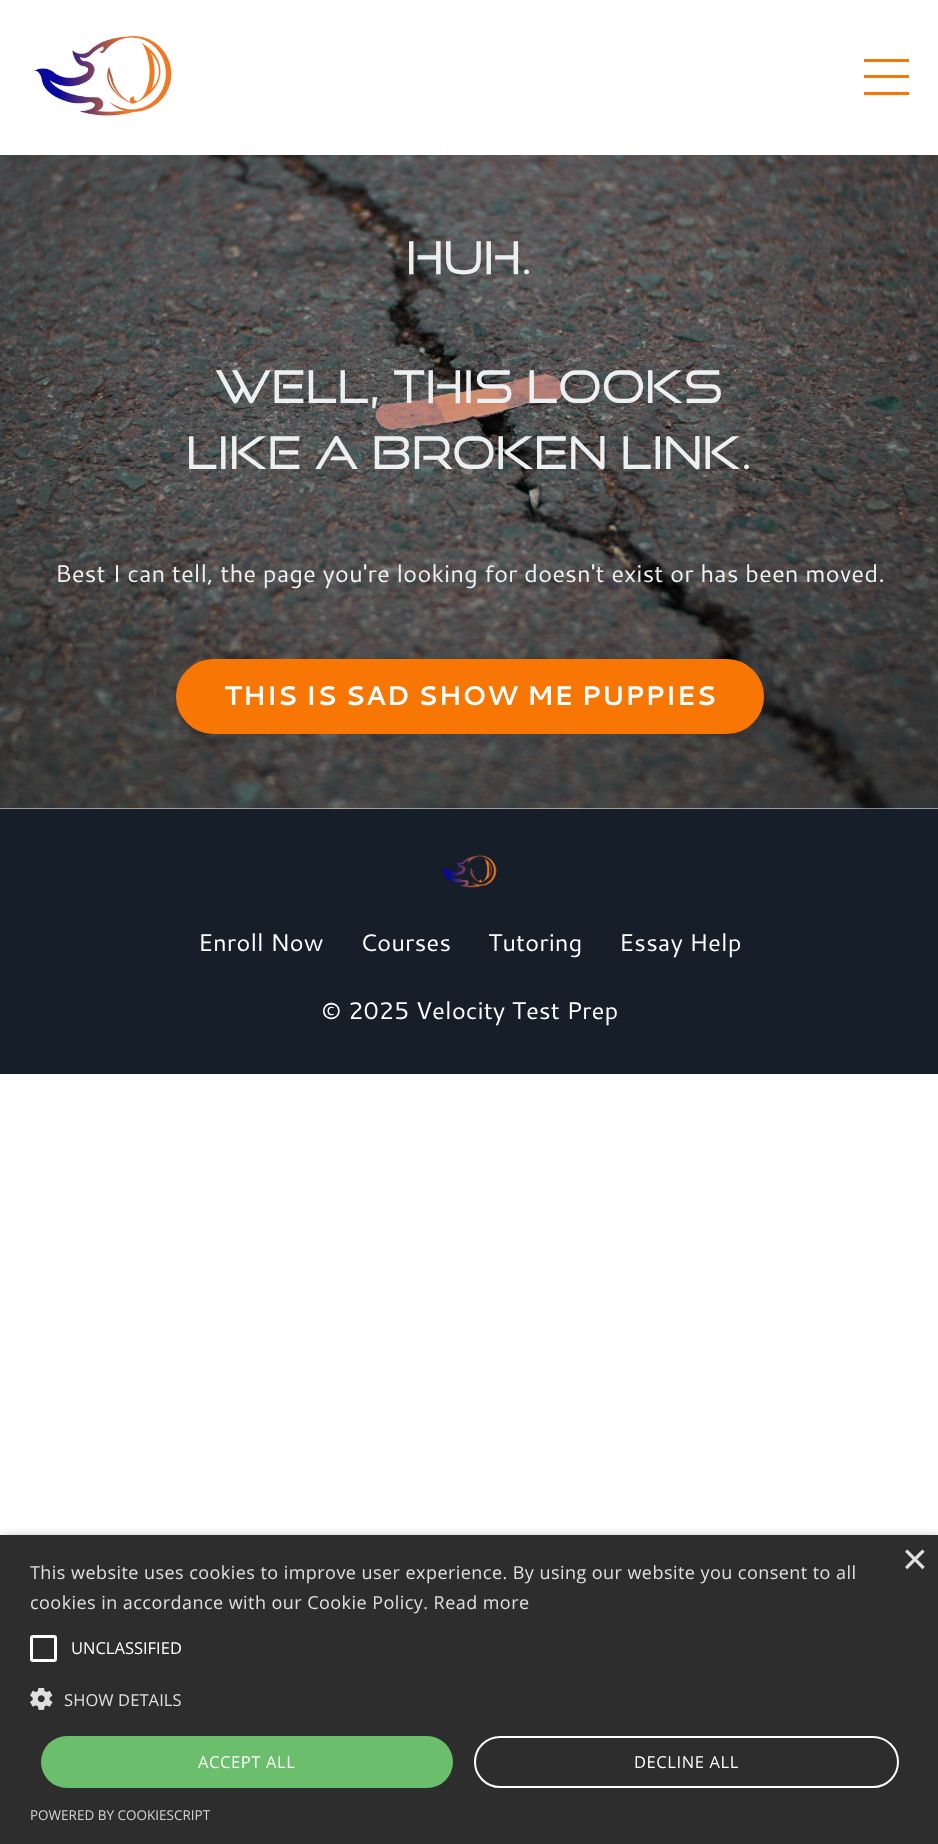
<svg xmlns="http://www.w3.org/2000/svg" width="938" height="1844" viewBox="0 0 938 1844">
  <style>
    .t1 { font: 45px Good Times; fill: #ecf0f1; }
    .t2 { font: 24px Cantarell; fill: #ecf0f1; }
    .t3 { font: bold 27px Cantarell; letter-spacing: 0.4px; fill: #fff; }
    .t4 { font: 24px Cantarell; fill: #fff; }
    .t5 { font: 44px Liberation Sans; fill: #e0e0e0; }
    .t6 { font: 18px Open Sans; letter-spacing: 0.45px; fill: #e0e0e0; }
    .t7 { font: 16.5px Open Sans; fill: #fff; }
    .t8 { font: 16.5px Open Sans; letter-spacing: 0.1px; fill: #e0e0e0; }
    .t9 { font: 16.5px Open Sans; letter-spacing: 0.6px; fill: #fff; }
    .t10 { font: 13.5px Open Sans; fill: #d5d5d5; }
  </style>
  <defs>
    <clipPath id="clip1"><rect x="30" y="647" width="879" height="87" rx="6"/></clipPath>
  </defs>
  <rect width="100%" height="100%" fill="#fff"/>
  <image x="34" y="35" width="138" height="81" href="images/1.png"/>
  <rect x="864" y="59" width="45" height="3" fill="#f87603"/>
  <rect x="864" y="75" width="45" height="3" fill="#f87603"/>
  <rect x="864" y="92" width="45" height="3" fill="#f87603"/>
  <image x="0" y="155" width="938" height="654" href="images/2.png"/>
  <text x="406" y="274" class="t1">Huh.</text>
  <text x="215" y="403" class="t1">Well, This Looks</text>
  <text x="186" y="469" class="t1">Like a Broken Link.</text>
  <text x="55" y="582" class="t2">Best I can tell, the page you're looking for doesn't exist or has been moved.</text>
  <g clip-path="url(#clip1)">
    <rect x="176" y="662" width="588" height="75" rx="37.5" fill="#0000001a" filter="blur(7.5px)"/>
  </g>
  <rect x="177.5" y="660.5" width="585" height="72" rx="36" fill="#f87603" stroke="#f87603" stroke-width="3"/>
  <text x="224" y="705" class="t3">THIS IS SAD SHOW ME PUPPIES</text>
  <rect x="0" y="809" width="938" height="265" fill="#161e2a"/>
  <image x="441" y="855" width="56" height="33" href="images/3.png"/>
  <text x="198" y="951" class="t4">Enroll Now</text>
  <text x="360" y="951" class="t4">Courses</text>
  <text x="488" y="951" class="t4">Tutoring</text>
  <text x="619" y="951" class="t4">Essay Help</text>
  <text x="321" y="1019" class="t4">© 2025 Velocity Test Prep</text>
  <rect x="2" y="1538" width="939" height="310" fill="#00000059" filter="blur(6px)"/>
  <rect x="0" y="1535" width="938" height="309" fill="#2d2d2d"/>
  <text x="902" y="1574" class="t5">×</text>
  <text x="30" y="1579" class="t6">This website uses cookies to improve user experience. By using our website you consent to all</text>
  <text x="30" y="1609" class="t6">cookies in accordance with our Cookie Policy. Read more</text>
  <rect x="31.5" y="1636.5" width="24" height="24" rx="1.5" fill="none" stroke="#fff" stroke-width="3"/>
  <text x="71" y="1654" class="t7">UNCLASSIFIED</text>
  <image x="30" y="1688" width="23" height="22" href="images/4.png"/>
  <text x="64" y="1706" class="t8">SHOW DETAILS</text>
  <rect x="41" y="1736" width="412" height="52" rx="26" fill="#6bbe6b"/>
  <text x="198" y="1768" class="t9">ACCEPT ALL</text>
  <rect x="475" y="1737" width="423" height="50" rx="25" fill="none" stroke="#fff" stroke-width="2"/>
  <text x="634" y="1768" class="t9">DECLINE ALL</text>
  <text x="30" y="1820" class="t10">POWERED BY COOKIESCRIPT</text>
</svg>
